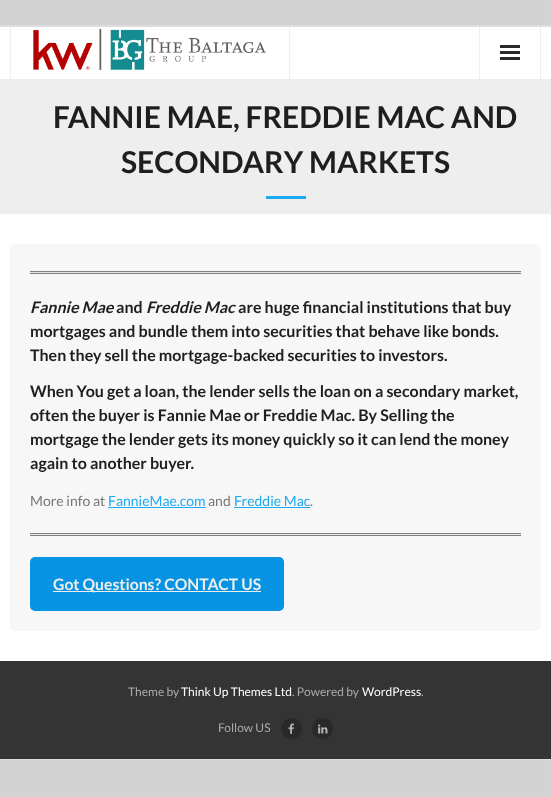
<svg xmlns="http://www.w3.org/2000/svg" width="551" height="797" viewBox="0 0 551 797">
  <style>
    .t1 { font: bold 30px Lato; fill: #1e1e1e; }
    .t2 { font: italic bold 16px Lato; fill: #1e1e1e; }
    .t3 { font: bold 16px Lato; fill: #1e1e1e; }
    .t4 { font: 14px Lato; fill: #777; }
    .t5 { font: 14px Lato; fill: #1eaaf1; }
    .t6 { font: bold 15.75px Lato; fill: #eee; }
    .t7 { font: 12px Lato; fill: #aaa; }
    .t8 { font: 12px Lato; fill: #fff; }
  </style>
  <rect width="100%" height="100%" fill="#d3d3d3"/>
  <rect x="0" y="27" width="551" height="634" fill="#fff"/>
  <rect x="0" y="25" width="551" height="2" fill="#ddd"/>
  <rect x="0" y="759" width="551" height="1" fill="#ddd"/>
  <rect x="289" y="27" width="1" height="52" fill="#eee"/>
  <rect x="10" y="27" width="1" height="52" fill="#eee"/>
  <image x="33" y="28" width="233" height="43" href="images/1.png"/>
  <rect x="540" y="27" width="1" height="52" fill="#eee"/>
  <rect x="479" y="27" width="1" height="52" fill="#eee"/>
  <rect x="500" y="45" width="20" height="3" fill="#292929"/>
  <rect x="500" y="51" width="20" height="3" fill="#292929"/>
  <rect x="500" y="57" width="20" height="3" fill="#292929"/>
  <rect x="0" y="79" width="551" height="135" fill="#eee"/>
  <text x="53" y="128" class="t1">FANNIE MAE, FREDDIE MAC AND</text>
  <text x="121" y="173" class="t1">SECONDARY MARKETS</text>
  <rect x="266" y="196" width="40" height="3" fill="#1eaaf1"/>
  <rect x="10" y="244" width="531" height="387" rx="5" fill="#f7f7f7"/>
  <rect x="30" y="272" width="491" height="1" fill="#e6e6e6"/>
  <rect x="30" y="271" width="491" height="1" fill="#808080"/>
  <rect x="30" y="273" width="491" height="1" fill="#808080"/>
  <text x="30" y="313" class="t2">Fannie Mae</text>
  <text x="116" y="313" class="t3">and</text>
  <text x="146" y="313" class="t2">Freddie Mac</text>
  <text x="238" y="313" class="t3">are huge financial institutions that buy</text>
  <text x="30" y="337" class="t3">mortgages and bundle them into securities that behave like bonds.</text>
  <text x="30" y="361" class="t3">Then they sell the mortgage-backed securities to investors.</text>
  <text x="30" y="397" class="t3">When You get a loan, the lender sells the loan on a secondary market,</text>
  <text x="30" y="421" class="t3">often the buyer is Fannie Mae or Freddie Mac. By Selling the</text>
  <text x="30" y="445" class="t3">mortgage the lender gets its money quickly so it can lend the money</text>
  <text x="30" y="469" class="t3">again to another buyer.</text>
  <text x="30" y="506" class="t4">More info at</text>
  <text x="108" y="506" class="t5">FannieMae.com</text>
  <rect x="108" y="507" width="98" height="1" fill="#1eaaf1"/>
  <text x="208" y="506" class="t4">and</text>
  <text x="234" y="506" class="t5">Freddie Mac</text>
  <rect x="234" y="507" width="76" height="1" fill="#1eaaf1"/>
  <text x="310" y="506" class="t4">.</text>
  <rect x="30" y="534" width="491" height="1" fill="#e6e6e6"/>
  <rect x="30" y="533" width="491" height="1" fill="#808080"/>
  <rect x="30" y="535" width="491" height="1" fill="#808080"/>
  <rect x="30" y="557" width="254" height="54" rx="5" fill="#0693e3"/>
  <rect x="53" y="591" width="208" height="1" fill="#eee"/>
  <text x="53" y="590" class="t6">Got Questions? CONTACT US</text>
  <rect x="0" y="661" width="551" height="98" fill="#343434"/>
  <text x="128" y="696" class="t7">Theme by</text>
  <text x="181" y="696" class="t8">Think Up Themes Ltd</text>
  <text x="292" y="696" class="t7">. Powered by</text>
  <text x="362" y="696" class="t8">WordPress</text>
  <text x="421" y="696" class="t7">.</text>
  <text x="218" y="732" class="t7">Follow US</text>
  <circle cx="291.5" cy="728.5" r="10.5" fill="#292929"/>
  <image x="288" y="723" width="6" height="11" href="images/2.png"/>
  <circle cx="322.5" cy="728.5" r="10.5" fill="#292929"/>
  <image x="318" y="724" width="10" height="10" href="images/3.png"/>
</svg>
